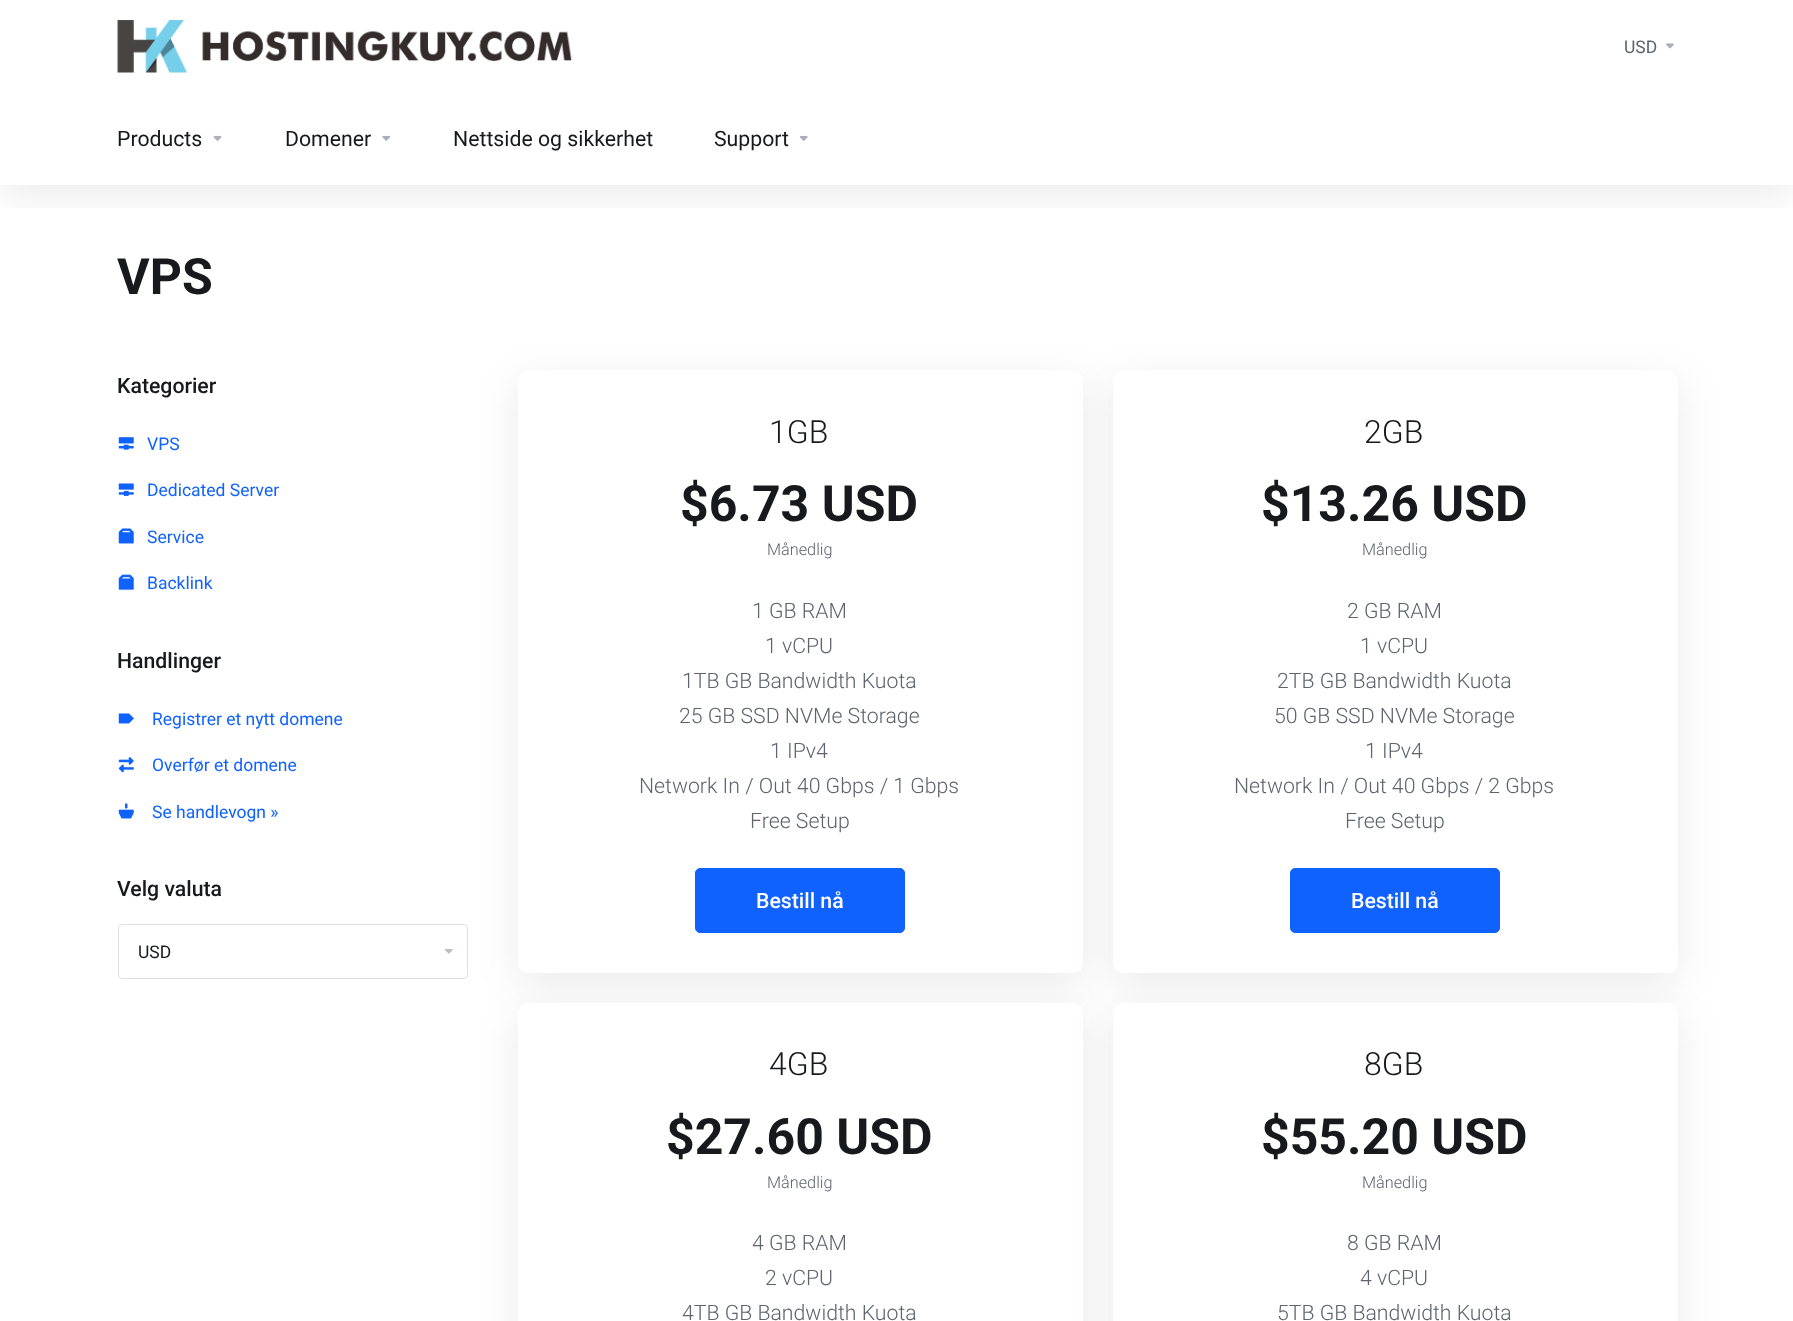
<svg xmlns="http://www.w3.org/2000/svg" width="1793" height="1321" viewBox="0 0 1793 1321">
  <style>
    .t1 { font: 17.5px Roboto; fill: #5e636e; }
    .t2 { font: 21.25px Roboto; fill: #17191c; }
    .t3 { font: bold 50px Roboto; fill: #17191c; }
    .t4 { font: 500 21.25px Roboto; fill: #17191c; }
    .t5 { font: 17.5px Roboto; fill: #1062fe; }
    .t6 { font: 17.5px Roboto; fill: #17191c; }
    .t7 { font: 300 32px Roboto; fill: #17191c; }
    .t8 { font: 300 16.25px Roboto; fill: #5e636e; }
    .t9 { font: 300 21.25px Roboto; fill: #5e636e; }
    .t10 { font: 500 21.25px Roboto; fill: #fff; }
  </style>
  <defs>
    <clipPath id="clip1"><rect x="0" y="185" width="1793" height="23"/></clipPath>
  </defs>
  <rect width="100%" height="100%" fill="#fff"/>
  <g clip-path="url(#clip1)">
    <rect x="0" y="10" width="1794" height="185" fill="#00000014" filter="blur(20px)"/>
  </g>
  <image x="117" y="20" width="455" height="53" href="images/1.png"/>
  <text x="1624" y="53" class="t1">USD</text>
  <image x="1666" y="43" width="8" height="6" href="images/2.png"/>
  <text x="117" y="146" class="t2">Products</text>
  <image x="213" y="135" width="9" height="6" href="images/3.png"/>
  <text x="285" y="146" class="t2">Domener</text>
  <image x="382" y="135" width="8" height="6" href="images/4.png"/>
  <text x="453" y="146" class="t2">Nettside og sikkerhet</text>
  <text x="714" y="146" class="t2">Support</text>
  <image x="800" y="135" width="8" height="6" href="images/5.png"/>
  <text x="117" y="294" class="t3">VPS</text>
  <text x="117" y="393" class="t4">Kategorier</text>
  <image x="118" y="437" width="16" height="13" href="images/6.png"/>
  <text x="147" y="450" class="t5">VPS</text>
  <image x="118" y="483" width="16" height="13" href="images/7.png"/>
  <text x="147" y="496" class="t5">Dedicated Server</text>
  <image x="118" y="528" width="16" height="16" href="images/8.png"/>
  <text x="147" y="543" class="t5">Service</text>
  <image x="118" y="574" width="16" height="16" href="images/9.png"/>
  <text x="147" y="589" class="t5">Backlink</text>
  <text x="117" y="668" class="t4">Handlinger</text>
  <image x="118" y="713" width="16" height="11" href="images/10.png"/>
  <text x="152" y="725" class="t5">Registrer et nytt domene</text>
  <image x="118" y="757" width="16" height="16" href="images/11.png"/>
  <text x="152" y="771" class="t5">Overfør et domene</text>
  <image x="118" y="803" width="16" height="16" href="images/12.png"/>
  <text x="152" y="818" class="t5">Se handlevogn »</text>
  <text x="117" y="896" class="t4">Velg valuta</text>
  <image x="445" y="949" width="8" height="5" href="images/13.png"/>
  <rect x="118.5" y="924.5" width="349" height="54" rx="3.5" fill="none" stroke="#dee0e3"/>
  <text x="138" y="958" class="t6">USD</text>
  <rect x="518" y="380" width="565" height="603" rx="8" fill="#00000014" filter="blur(20px)"/>
  <rect x="518" y="370" width="565" height="603" rx="8" fill="#0000001f" filter="blur(0.5px)"/>
  <rect x="518" y="370" width="565" height="603" rx="8" fill="#fff"/>
  <text x="769" y="443" class="t7">1GB</text>
  <text x="680" y="521" class="t3">$6.73 USD</text>
  <text x="767" y="555" class="t8">Månedlig</text>
  <text x="752" y="618" class="t9">1 GB RAM</text>
  <text x="765" y="653" class="t9">1 vCPU</text>
  <text x="682" y="688" class="t9">1TB GB Bandwidth Kuota</text>
  <text x="679" y="723" class="t9">25 GB SSD NVMe Storage</text>
  <text x="770" y="758" class="t9">1 IPv4</text>
  <text x="639" y="793" class="t9">Network In / Out 40 Gbps / 1 Gbps</text>
  <text x="750" y="828" class="t9">Free Setup</text>
  <rect x="695.5" y="868.5" width="209" height="64" rx="4.5" fill="#1062fe" stroke="#1062fe"/>
  <text x="756" y="908" class="t10">Bestill nå</text>
  <rect x="1113" y="380" width="565" height="603" rx="8" fill="#00000014" filter="blur(20px)"/>
  <rect x="1113" y="370" width="565" height="603" rx="8" fill="#0000001f" filter="blur(0.5px)"/>
  <rect x="1113" y="370" width="565" height="603" rx="8" fill="#fff"/>
  <text x="1364" y="443" class="t7">2GB</text>
  <text x="1261" y="521" class="t3">$13.26 USD</text>
  <text x="1362" y="555" class="t8">Månedlig</text>
  <text x="1347" y="618" class="t9">2 GB RAM</text>
  <text x="1360" y="653" class="t9">1 vCPU</text>
  <text x="1277" y="688" class="t9">2TB GB Bandwidth Kuota</text>
  <text x="1274" y="723" class="t9">50 GB SSD NVMe Storage</text>
  <text x="1365" y="758" class="t9">1 IPv4</text>
  <text x="1234" y="793" class="t9">Network In / Out 40 Gbps / 2 Gbps</text>
  <text x="1345" y="828" class="t9">Free Setup</text>
  <rect x="1290.5" y="868.5" width="209" height="64" rx="4.5" fill="#1062fe" stroke="#1062fe"/>
  <text x="1351" y="908" class="t10">Bestill nå</text>
  <rect x="518" y="1013" width="565" height="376" rx="8" fill="#00000014" filter="blur(20px)"/>
  <rect x="518" y="1003" width="565" height="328" rx="8" fill="#0000001f" filter="blur(0.5px)"/>
  <rect x="518" y="1003" width="565" height="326" rx="8" fill="#fff"/>
  <text x="769" y="1075" class="t7">4GB</text>
  <text x="666" y="1154" class="t3">$27.60 USD</text>
  <text x="767" y="1188" class="t8">Månedlig</text>
  <text x="752" y="1250" class="t9">4 GB RAM</text>
  <text x="765" y="1285" class="t9">2 vCPU</text>
  <text x="682" y="1320" class="t9">4TB GB Bandwidth Kuota</text>
  <rect x="1113" y="1013" width="565" height="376" rx="8" fill="#00000014" filter="blur(20px)"/>
  <rect x="1113" y="1003" width="565" height="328" rx="8" fill="#0000001f" filter="blur(0.5px)"/>
  <rect x="1113" y="1003" width="565" height="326" rx="8" fill="#fff"/>
  <text x="1364" y="1075" class="t7">8GB</text>
  <text x="1261" y="1154" class="t3">$55.20 USD</text>
  <text x="1362" y="1188" class="t8">Månedlig</text>
  <text x="1347" y="1250" class="t9">8 GB RAM</text>
  <text x="1360" y="1285" class="t9">4 vCPU</text>
  <text x="1277" y="1320" class="t9">5TB GB Bandwidth Kuota</text>
</svg>
